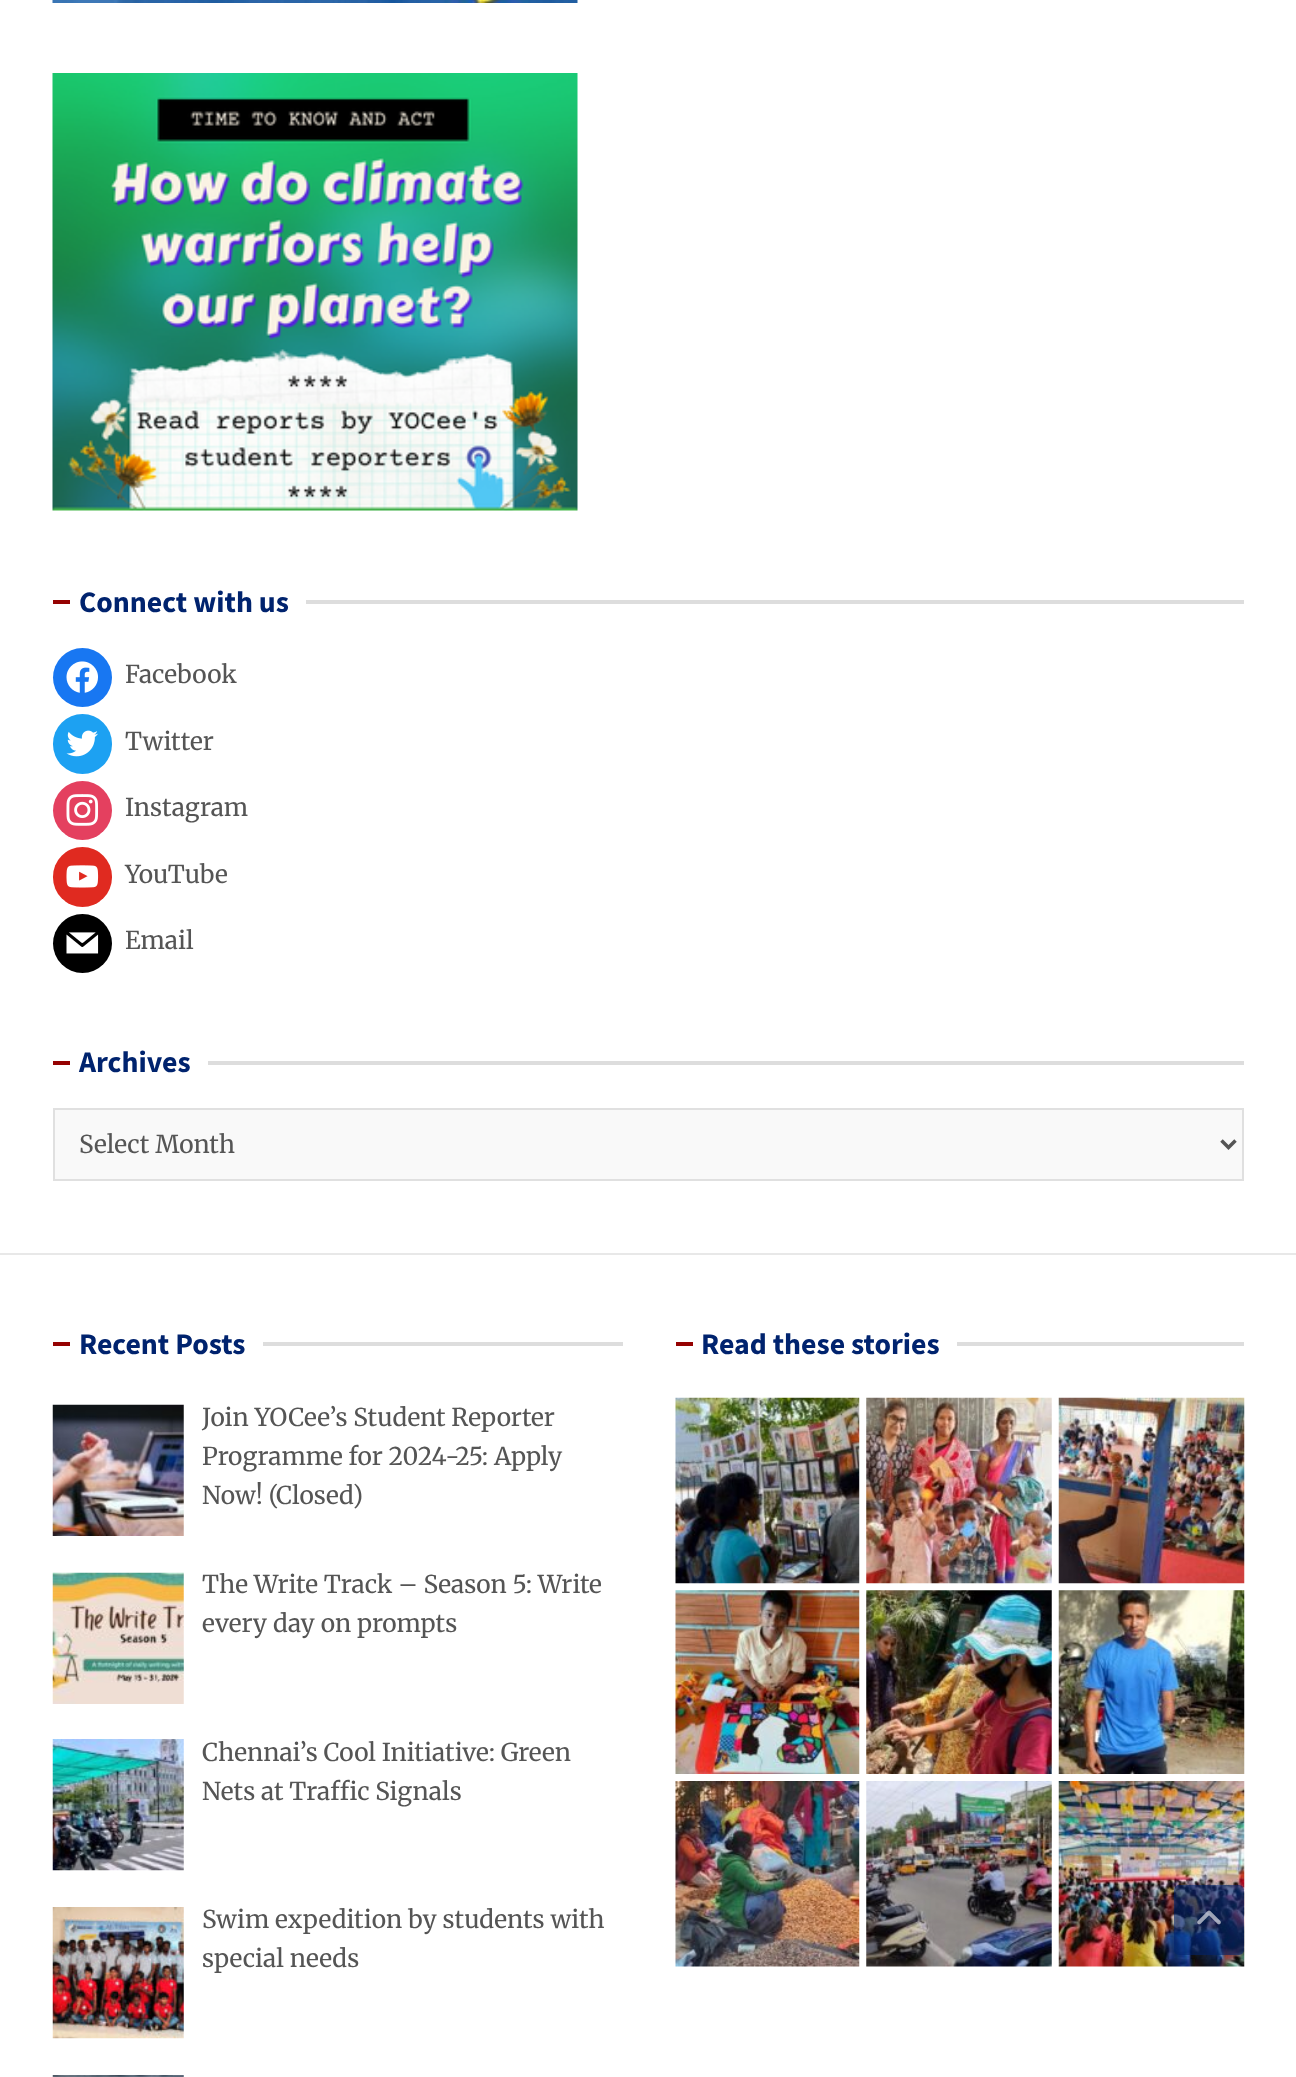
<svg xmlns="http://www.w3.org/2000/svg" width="1296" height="2077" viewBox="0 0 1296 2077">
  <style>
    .t1 { font: bold 29.75px Source Sans Pro; fill: #00236e; }
    .t2 { font: 24.5px Merriweather; fill: #555; }
  </style>
  <rect width="100%" height="100%" fill="#fff"/>
  <image x="52" y="0" width="526" height="3" href="images/1.png"/>
  <image x="52" y="73" width="526" height="438" href="images/2.png"/>
  <rect x="53" y="600" width="17" height="4" fill="#950202"/>
  <text x="79" y="612" class="t1">Connect with us</text>
  <rect x="306" y="600" width="938" height="4" fill="#ddd"/>
  <circle cx="82.5" cy="677.5" r="29.5" fill="#1877f2"/>
  <image x="66" y="661" width="32" height="32" href="images/3.png"/>
  <text x="125" y="683" class="t2">Facebook</text>
  <rect x="53" y="714" width="59" height="60" rx="29.5" fill="#1da1f2"/>
  <image x="66" y="730" width="32" height="27" href="images/4.png"/>
  <text x="125" y="750" class="t2">Twitter</text>
  <circle cx="82.5" cy="810.5" r="29.5" fill="#e4405f"/>
  <image x="66" y="794" width="33" height="32" href="images/5.png"/>
  <text x="125" y="816" class="t2">Instagram</text>
  <rect x="53" y="847" width="59" height="60" rx="29.5" fill="#e02a20"/>
  <image x="66" y="865" width="33" height="23" href="images/6.png"/>
  <text x="125" y="883" class="t2">YouTube</text>
  <circle cx="82.5" cy="943.5" r="29.5" fill="#000"/>
  <image x="66" y="932" width="33" height="22" href="images/7.png"/>
  <text x="125" y="949" class="t2">Email</text>
  <rect x="53" y="1061" width="17" height="4" fill="#950202"/>
  <text x="79" y="1072" class="t1">Archives</text>
  <rect x="208" y="1061" width="1036" height="4" fill="#ddd"/>
  <rect x="54" y="1109" width="1189" height="71" fill="#f9f9f9" stroke="#e0e0e0" stroke-width="2"/>
  <path d="M1221.5 1140.5L1228.5 1147.5L1235.5 1140.5" fill="none" stroke="#555" stroke-width="3.5"/>
  <text x="79" y="1153" class="t2">Select Month</text>
  <rect x="0" y="1253" width="1296" height="2" fill="#e8e8e8"/>
  <rect x="53" y="1342" width="17" height="4" fill="#950202"/>
  <text x="79" y="1354" class="t1">Recent Posts</text>
  <rect x="263" y="1342" width="360" height="4" fill="#ddd"/>
  <image x="52" y="1404" width="132" height="132" href="images/8.png"/>
  <text x="202" y="1426" class="t2">Join YOCee’s Student Reporter</text>
  <text x="202" y="1465" class="t2">Programme for 2024-25: Apply</text>
  <text x="202" y="1504" class="t2">Now! (Closed)</text>
  <image x="52" y="1572" width="132" height="132" href="images/9.png"/>
  <text x="202" y="1593" class="t2">The Write Track – Season 5: Write</text>
  <text x="202" y="1632" class="t2">every day on prompts</text>
  <image x="52" y="1739" width="132" height="132" href="images/10.png"/>
  <text x="202" y="1761" class="t2">Chennai’s Cool Initiative: Green</text>
  <text x="202" y="1800" class="t2">Nets at Traffic Signals</text>
  <image x="52" y="1907" width="132" height="132" href="images/11.png"/>
  <text x="202" y="1928" class="t2">Swim expedition by students with</text>
  <text x="202" y="1967" class="t2">special needs</text>
  <image x="52" y="2075" width="132" height="2" href="images/12.png"/>
  <rect x="676" y="1342" width="17" height="4" fill="#950202"/>
  <text x="701" y="1354" class="t1">Read these stories</text>
  <rect x="957" y="1342" width="287" height="4" fill="#ddd"/>
  <image x="675" y="1397" width="185" height="187" href="images/13.png"/>
  <image x="866" y="1397" width="186" height="187" href="images/14.png"/>
  <image x="1058" y="1397" width="187" height="187" href="images/15.png"/>
  <image x="675" y="1590" width="185" height="184" href="images/16.png"/>
  <image x="866" y="1590" width="186" height="184" href="images/17.png"/>
  <image x="1058" y="1590" width="187" height="184" href="images/18.png"/>
  <image x="675" y="1781" width="185" height="186" href="images/19.png"/>
  <image x="866" y="1781" width="186" height="186" href="images/20.png"/>
  <image x="1058" y="1781" width="187" height="186" href="images/21.png"/>
  <rect x="1174" y="1885" width="70" height="70" rx="5" fill="#00236e99"/>
  <image x="1197" y="1910" width="24" height="15" href="images/22.png"/>
</svg>
